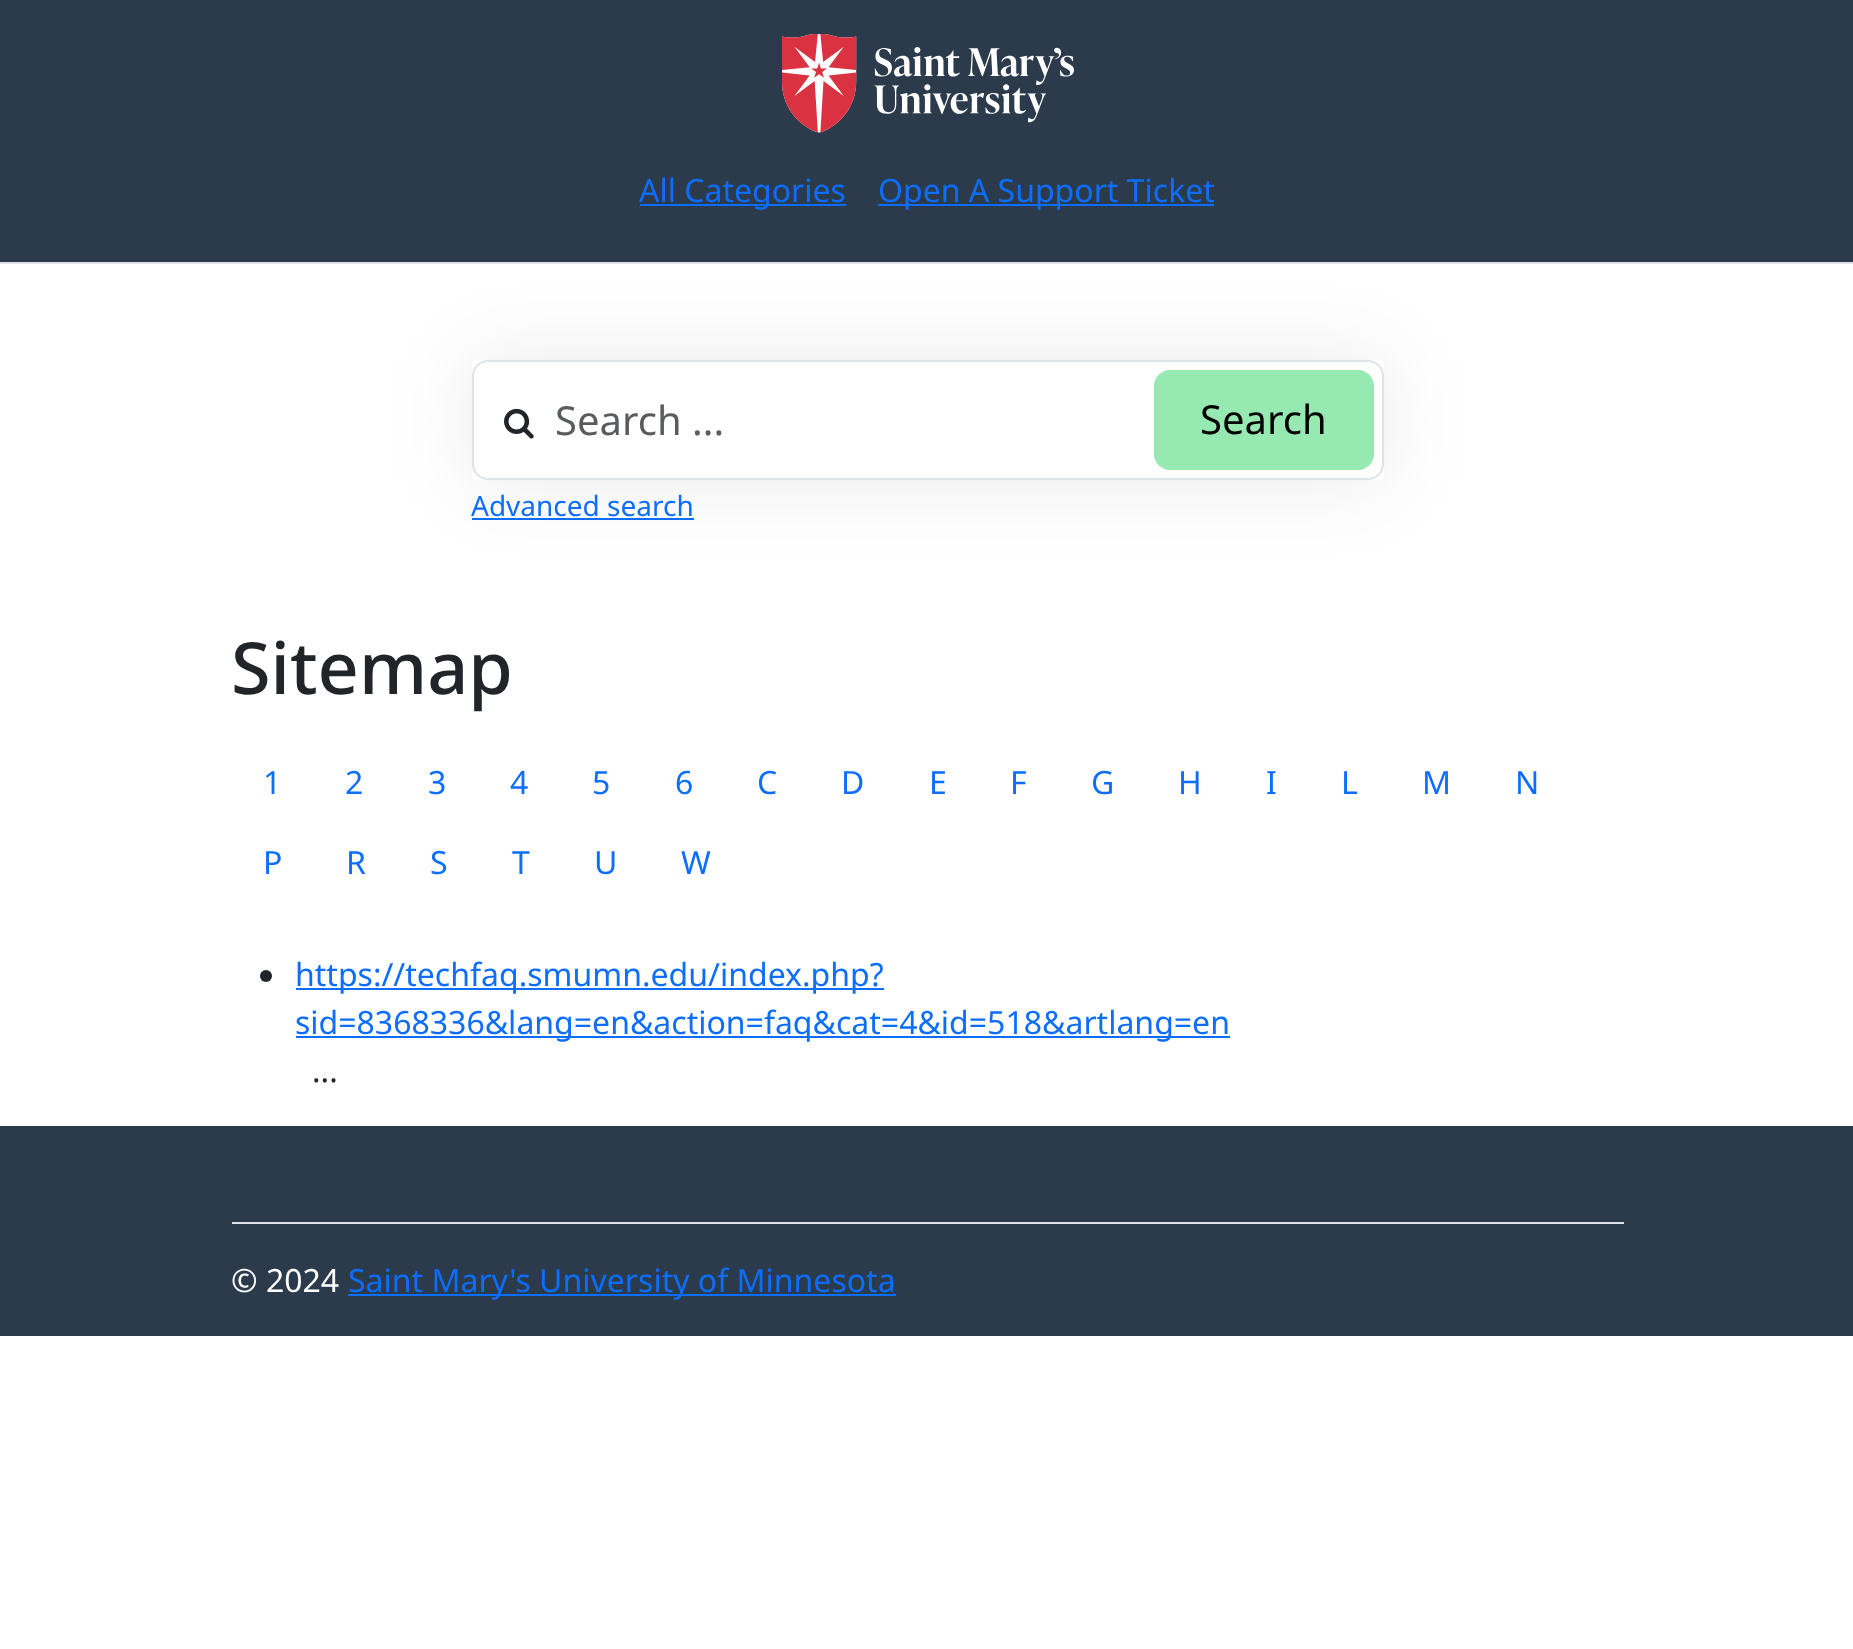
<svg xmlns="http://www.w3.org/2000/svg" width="1853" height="1649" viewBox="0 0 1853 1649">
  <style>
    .t1 { font: 32px Noto Sans; fill: #0d6efd; }
    .t2 { font: 40px Noto Sans; fill: #595c5f; }
    .t3 { font: 40px Noto Sans; fill: #000; }
    .t4 { font: 28px Noto Sans; fill: #0d6efd; }
    .t5 { font: 500 72px Noto Sans; fill: #212529; }
    .t6 { font: 32px Noto Sans; fill: #212529; }
    .t7 { font: 32px Noto Sans; fill: #fff; }
  </style>
  <defs>
    <clipPath id="clip1"><path d="M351 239H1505V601H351ZM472 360H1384V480H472Z" clip-rule="evenodd"/></clipPath>
  </defs>
  <rect width="100%" height="100%" fill="#fff"/>
  <rect x="0" y="0" width="1853" height="262" fill="#2b3b4c"/>
  <rect x="0" y="262" width="1853" height="2" fill="#dee2e6"/>
  <image x="782" y="33" width="292" height="100" href="images/1.png"/>
  <rect x="640" y="204" width="206" height="2" fill="#0d6efd"/>
  <text x="639" y="202" class="t1">All Categories</text>
  <rect x="878" y="204" width="336" height="2" fill="#0d6efd"/>
  <text x="878" y="202" class="t1">Open A Support Ticket</text>
  <rect x="472" y="518" width="222" height="2" fill="#0d6efd"/>
  <g clip-path="url(#clip1)">
    <rect x="472" y="360" width="912" height="120" fill="#3333331a" filter="blur(40px)"/>
  </g>
  <rect x="473" y="361" width="910" height="118" rx="15" fill="none" stroke="#dee2e6" stroke-width="2"/>
  <image x="504" y="408" width="30" height="31" href="images/2.png"/>
  <text x="555" y="435" class="t2">Search ...</text>
  <rect x="1155" y="371" width="218" height="98" rx="15" fill="#96e9b0" stroke="#96e9b0" stroke-width="2"/>
  <text x="1200" y="434" class="t3">Search</text>
  <text x="471" y="516" class="t4">Advanced search</text>
  <text x="231" y="694" class="t5">Sitemap</text>
  <text x="263" y="794" class="t1">1</text>
  <text x="345" y="794" class="t1">2</text>
  <text x="428" y="794" class="t1">3</text>
  <text x="510" y="794" class="t1">4</text>
  <text x="592" y="794" class="t1">5</text>
  <text x="675" y="794" class="t1">6</text>
  <text x="757" y="794" class="t1">C</text>
  <text x="841" y="794" class="t1">D</text>
  <text x="929" y="794" class="t1">E</text>
  <text x="1010" y="794" class="t1">F</text>
  <text x="1091" y="794" class="t1">G</text>
  <text x="1178" y="794" class="t1">H</text>
  <text x="1266" y="794" class="t1">I</text>
  <text x="1341" y="794" class="t1">L</text>
  <text x="1422" y="794" class="t1">M</text>
  <text x="1515" y="794" class="t1">N</text>
  <text x="263" y="874" class="t1">P</text>
  <text x="346" y="874" class="t1">R</text>
  <text x="430" y="874" class="t1">S</text>
  <text x="512" y="874" class="t1">T</text>
  <text x="594" y="874" class="t1">U</text>
  <text x="681" y="874" class="t1">W</text>
  <circle cx="266" cy="976" r="6" fill="#212529"/>
  <rect x="296" y="988" width="588" height="2" fill="#0d6efd"/>
  <text x="295" y="986" class="t1">https://techfaq.smumn.edu/index.php?</text>
  <rect x="296" y="1036" width="934" height="2" fill="#0d6efd"/>
  <text x="295" y="1034" class="t1">sid=8368336&amp;lang=en&amp;action=faq&amp;cat=4&amp;id=518&amp;artlang=en</text>
  <text x="312" y="1082" class="t6">...</text>
  <rect x="0" y="1126" width="1853" height="210" fill="#2b3b4c"/>
  <rect x="232" y="1222" width="1392" height="2" fill="#dee2e6"/>
  <text x="231" y="1292" class="t7">© 2024</text>
  <rect x="348" y="1294" width="548" height="2" fill="#0d6efd"/>
  <text x="348" y="1292" class="t1">Saint Mary's University of Minnesota</text>
</svg>
